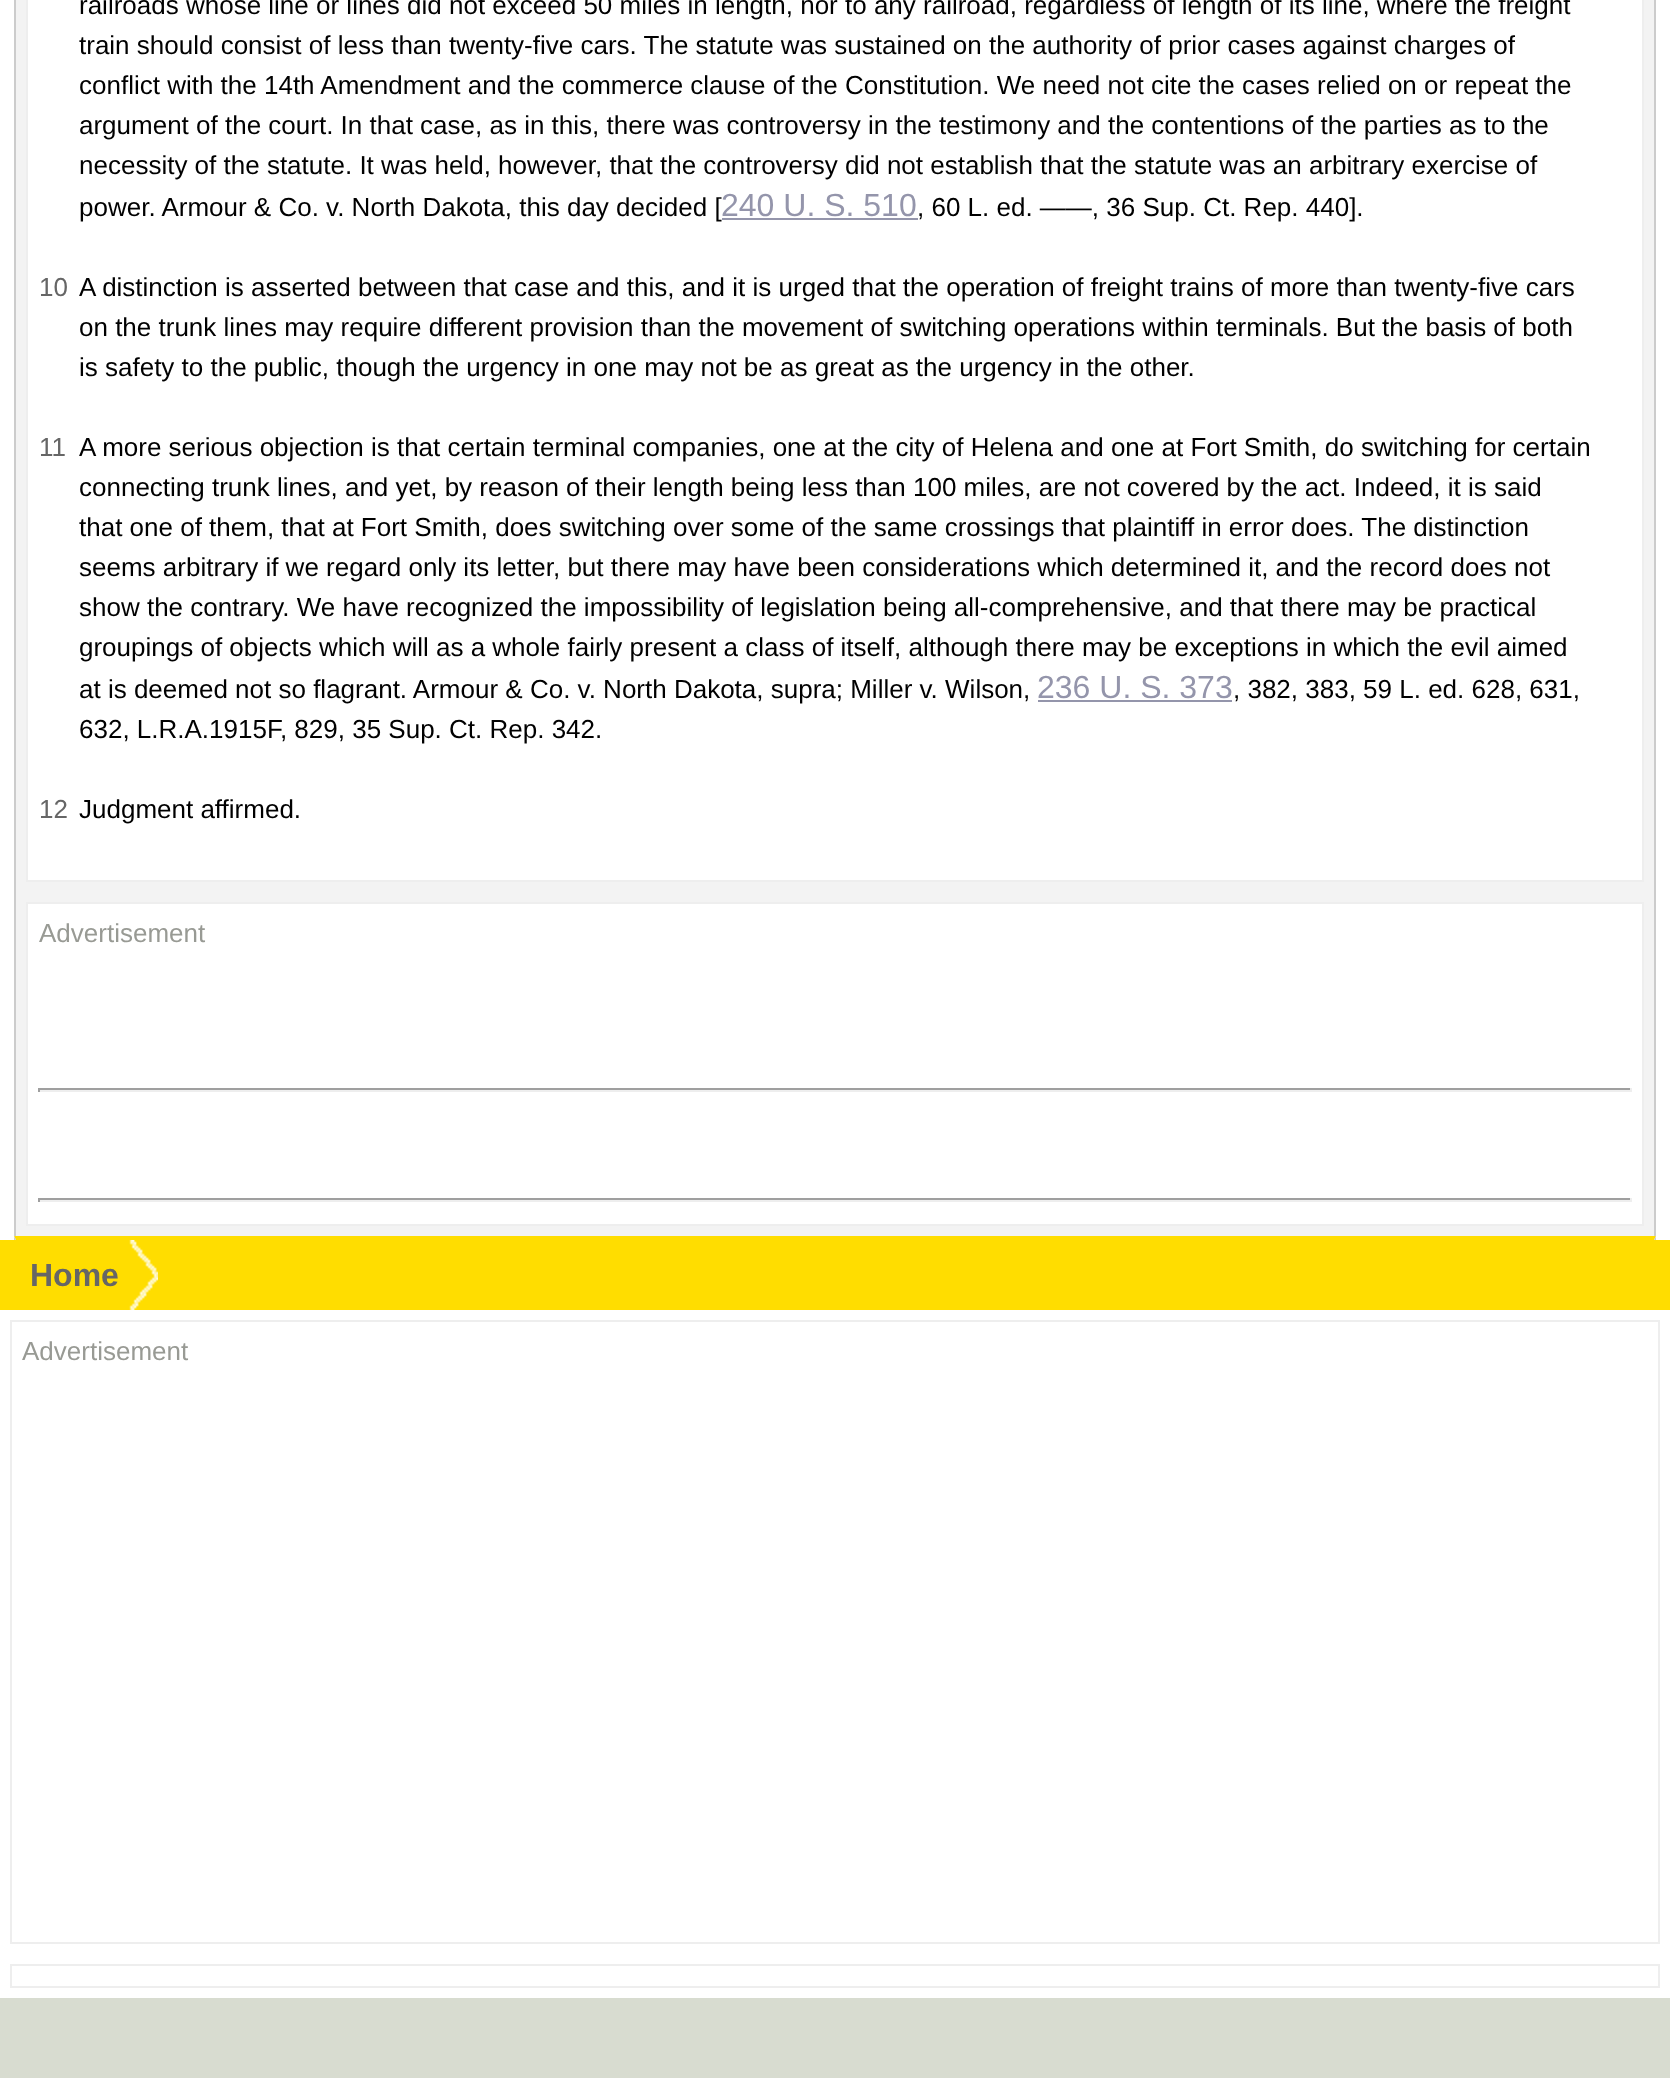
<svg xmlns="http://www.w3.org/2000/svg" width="1670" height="2078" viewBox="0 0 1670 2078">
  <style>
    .t1 { font: 26px Liberation Sans; fill: #000; }
    .t2 { font: 32px Liberation Sans; fill: #9495ab; }
    .t3 { font: 26px Liberation Sans; fill: #666; }
    .t4 { font: 26px Liberation Sans; fill: #989a94; }
    .t5 { font: bold 32px Liberation Sans; fill: #666; }
  </style>
  <rect width="100%" height="100%" fill="#d8dcd0"/>
  <rect x="0" y="0" width="1670" height="1998" fill="#fff"/>
  <rect x="16" y="0" width="1638" height="1236" fill="#f3f3f3"/>
  <rect x="1654" y="0" width="2" height="1236" fill="#ccc"/>
  <rect x="14" y="0" width="2" height="1236" fill="#ccc"/>
  <rect x="27" y="-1" width="1616" height="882" fill="#fff" stroke="#eee" stroke-width="2"/>
  <text x="79" y="14" class="t1">railroads whose line or lines did not exceed 50 miles in length, nor to any railroad, regardless of length of its line, where the freight</text>
  <text x="79" y="54" class="t1">train should consist of less than twenty-five cars. The statute was sustained on the authority of prior cases against charges of</text>
  <text x="79" y="94" class="t1">conflict with the 14th Amendment and the commerce clause of the Constitution. We need not cite the cases relied on or repeat the</text>
  <text x="79" y="134" class="t1">argument of the court. In that case, as in this, there was controversy in the testimony and the contentions of the parties as to the</text>
  <text x="79" y="174" class="t1">necessity of the statute. It was held, however, that the controversy did not establish that the statute was an arbitrary exercise of</text>
  <text x="79" y="216" class="t1">power. Armour &amp; Co. v. North Dakota, this day decided [</text>
  <text x="721" y="216" class="t2">240 U. S. 510</text>
  <rect x="722" y="218" width="196" height="2" fill="#9495ab"/>
  <text x="917" y="216" class="t1">, 60 L. ed. ——, 36 Sup. Ct. Rep. 440].</text>
  <text x="39" y="296" class="t3">10</text>
  <text x="79" y="296" class="t1">A distinction is asserted between that case and this, and it is urged that the operation of freight trains of more than twenty-five cars</text>
  <text x="79" y="336" class="t1">on the trunk lines may require different provision than the movement of switching operations within terminals. But the basis of both</text>
  <text x="79" y="376" class="t1">is safety to the public, though the urgency in one may not be as great as the urgency in the other.</text>
  <text x="39" y="456" class="t3">11</text>
  <text x="79" y="456" class="t1">A more serious objection is that certain terminal companies, one at the city of Helena and one at Fort Smith, do switching for certain</text>
  <text x="79" y="496" class="t1">connecting trunk lines, and yet, by reason of their length being less than 100 miles, are not covered by the act. Indeed, it is said</text>
  <text x="79" y="536" class="t1">that one of them, that at Fort Smith, does switching over some of the same crossings that plaintiff in error does. The distinction</text>
  <text x="79" y="576" class="t1">seems arbitrary if we regard only its letter, but there may have been considerations which determined it, and the record does not</text>
  <text x="79" y="616" class="t1">show the contrary. We have recognized the impossibility of legislation being all-comprehensive, and that there may be practical</text>
  <text x="79" y="656" class="t1">groupings of objects which will as a whole fairly present a class of itself, although there may be exceptions in which the evil aimed</text>
  <text x="79" y="698" class="t1">at is deemed not so flagrant. Armour &amp; Co. v. North Dakota, supra; Miller v. Wilson,</text>
  <text x="1037" y="698" class="t2">236 U. S. 373</text>
  <rect x="1038" y="700" width="194" height="2" fill="#9495ab"/>
  <text x="1233" y="698" class="t1">, 382, 383, 59 L. ed. 628, 631,</text>
  <text x="79" y="738" class="t1">632, L.R.A.1915F, 829, 35 Sup. Ct. Rep. 342.</text>
  <text x="39" y="818" class="t3">12</text>
  <text x="79" y="818" class="t1">Judgment affirmed.</text>
  <rect x="27" y="903" width="1616" height="322" fill="#fff" stroke="#eee" stroke-width="2"/>
  <text x="39" y="942" class="t4">Advertisement</text>
  <rect x="38" y="1088" width="1594" height="2" fill="#9f9f9f"/>
  <rect x="1630" y="1088" width="2" height="4" fill="#eee"/>
  <rect x="38" y="1090" width="1594" height="2" fill="#eee"/>
  <rect x="38" y="1088" width="2" height="4" fill="#9f9f9f"/>
  <rect x="38" y="1198" width="1594" height="2" fill="#9f9f9f"/>
  <rect x="1630" y="1198" width="2" height="4" fill="#eee"/>
  <rect x="38" y="1200" width="1594" height="2" fill="#eee"/>
  <rect x="38" y="1198" width="2" height="4" fill="#9f9f9f"/>
  <path d="M14 1236H1656L1654 1240H16Z" fill="#fd0"/>
  <path d="M1656 1236V1240H1654Z" fill="#ccc"/>
  <path d="M14 1240V1236L16 1240Z" fill="#ccc"/>
  <rect x="0" y="1240" width="1670" height="70" fill="#fd0"/>
  <image x="129" y="1240" width="29" height="70" href="images/1.png"/>
  <text x="30" y="1286" class="t5">Home</text>
  <rect x="11" y="1321" width="1648" height="622" fill="none" stroke="#eee" stroke-width="2"/>
  <text x="22" y="1360" class="t4">Advertisement</text>
  <rect x="11" y="1965" width="1648" height="22" fill="none" stroke="#eee" stroke-width="2"/>
</svg>
